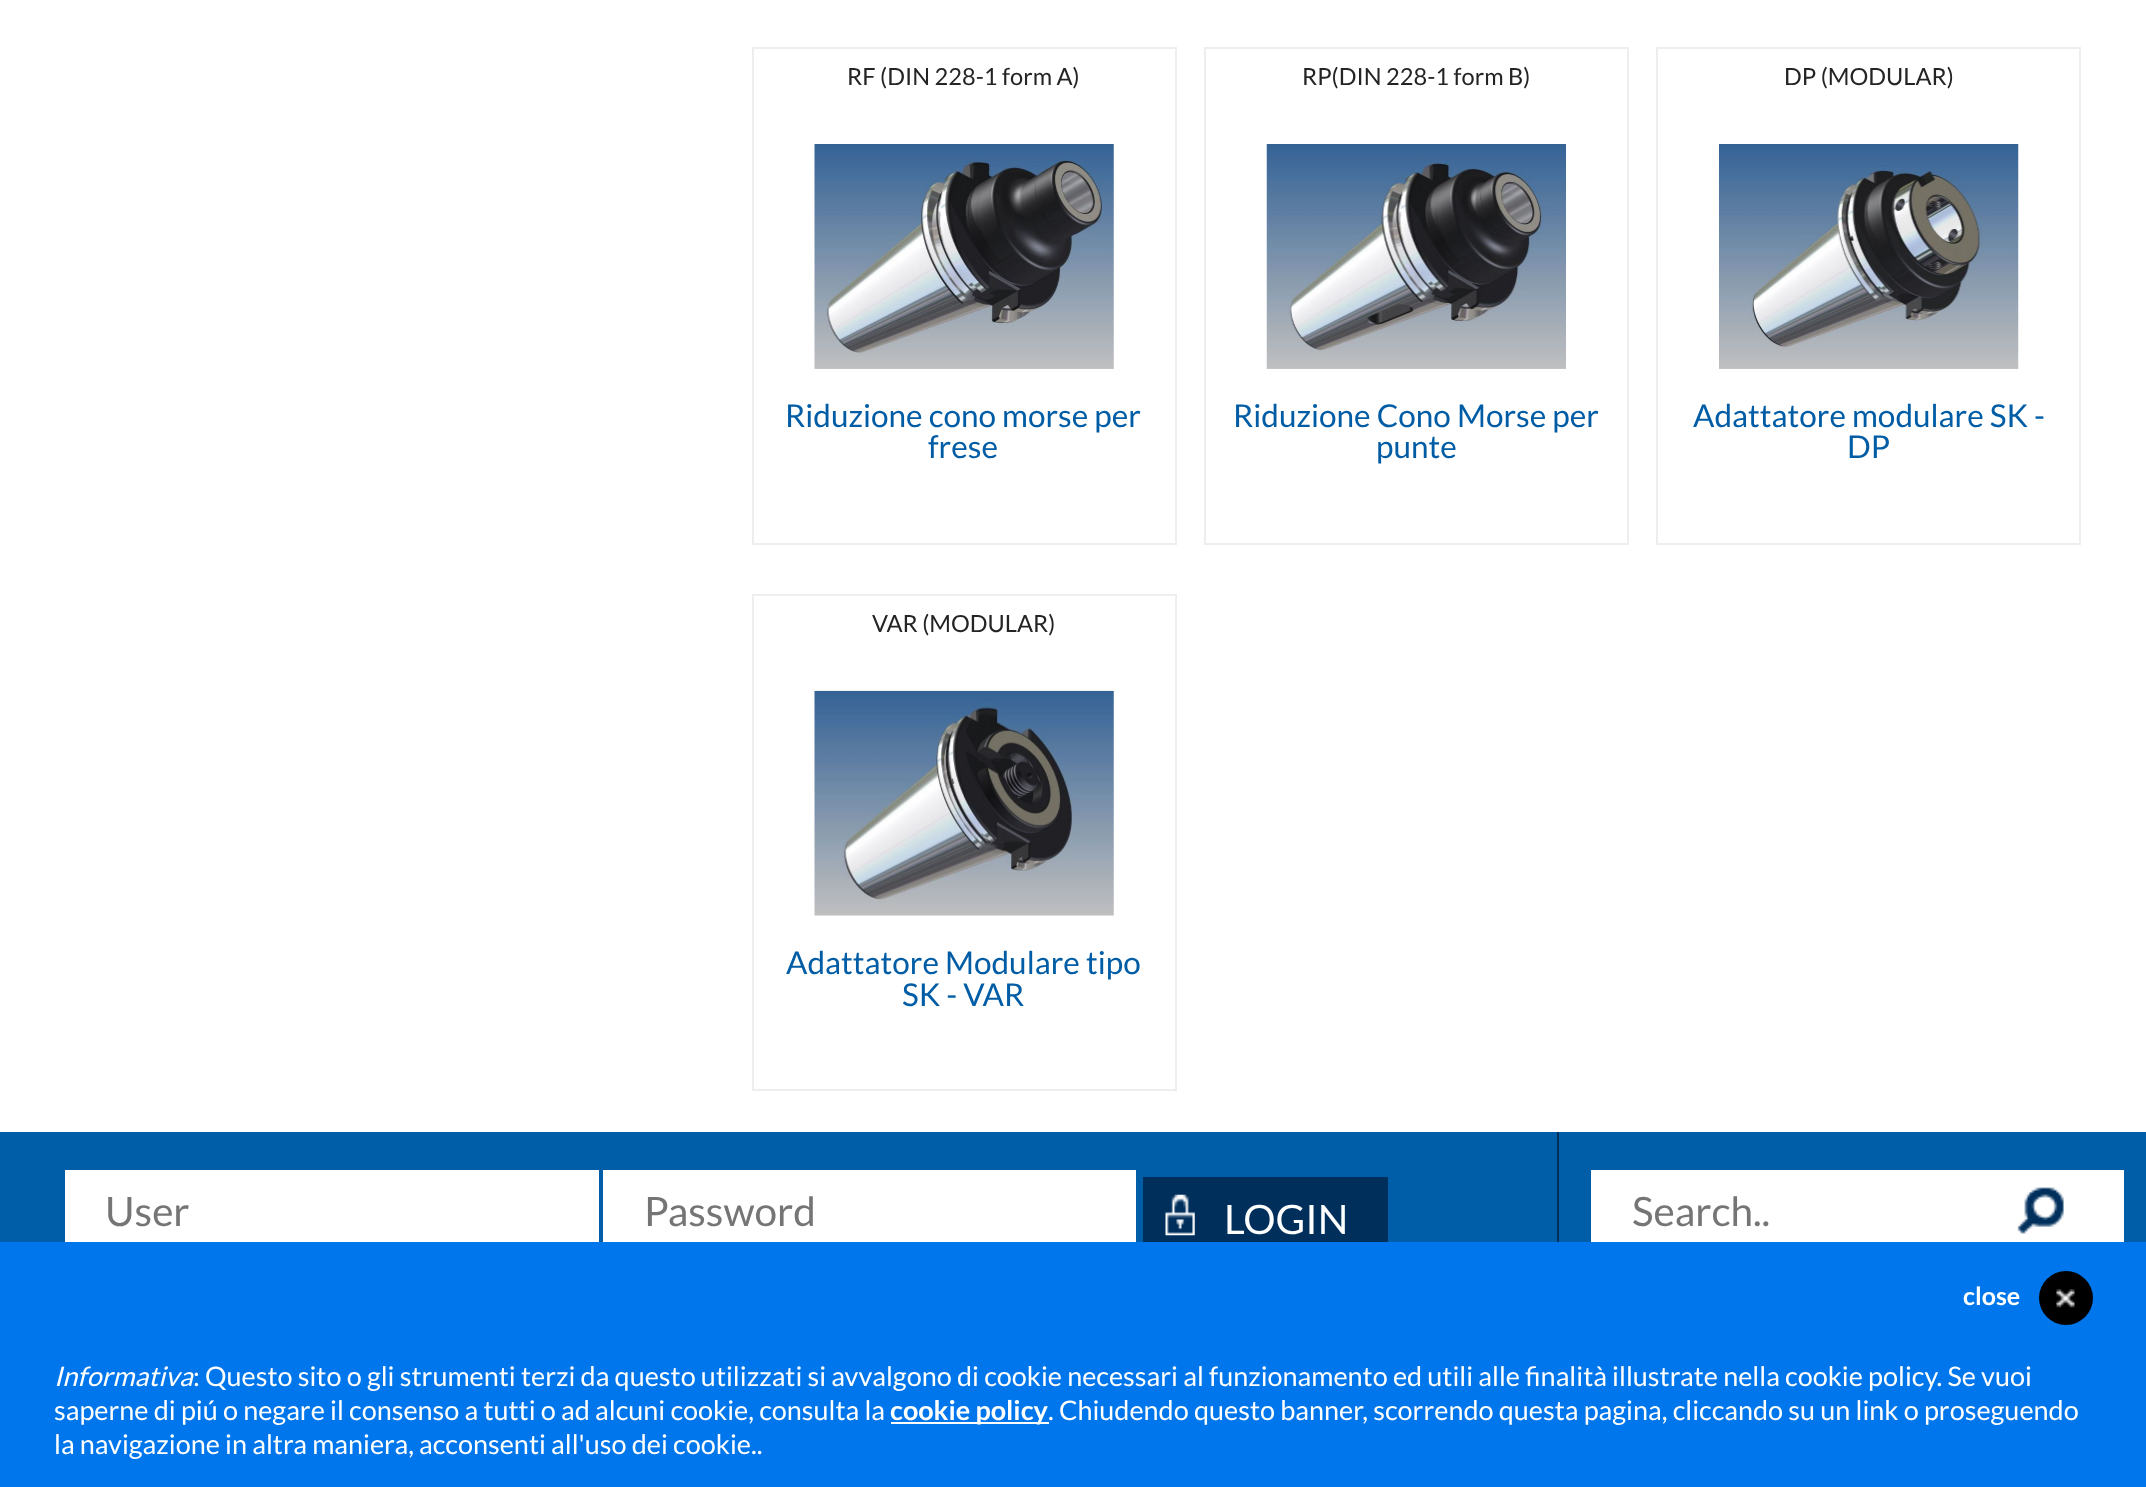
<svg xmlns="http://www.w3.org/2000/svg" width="2146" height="1487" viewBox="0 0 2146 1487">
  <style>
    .t1 { font: 23.6px Lato; fill: #242424; }
    .t2 { font: 31.5px Lato; fill: #005da5; }
    .t3 { font: 40.5px Lato; fill: #757575; }
    .t4 { font: 40.5px Lato; fill: #fff; }
    .t5 { font: bold 25px Lato; fill: #fff; }
    .t6 { font: italic 27px Lato; fill: #fff; }
    .t7 { font: 27px Lato; fill: #fff; }
    .t8 { font: bold 27px Lato; fill: #fff; }
  </style>
  <rect width="100%" height="100%" fill="#fff"/>
  <rect x="753" y="48" width="423" height="496" fill="none" stroke="#eee" stroke-width="2"/>
  <text x="847" y="85" class="t1">RF (DIN 228-1 form A)</text>
  <image x="814" y="144" width="300" height="225" href="images/1.png"/>
  <text x="785" y="427" class="t2">Riduzione cono morse per</text>
  <text x="928" y="458" class="t2">frese</text>
  <rect x="1205" y="48" width="423" height="496" fill="none" stroke="#eee" stroke-width="2"/>
  <text x="1302" y="85" class="t1">RP(DIN 228-1 form B)</text>
  <image x="1266" y="144" width="300" height="225" href="images/2.png"/>
  <text x="1233" y="427" class="t2">Riduzione Cono Morse per</text>
  <text x="1376" y="458" class="t2">punte</text>
  <rect x="1657" y="48" width="423" height="496" fill="none" stroke="#eee" stroke-width="2"/>
  <text x="1784" y="85" class="t1">DP (MODULAR)</text>
  <image x="1719" y="144" width="300" height="225" href="images/3.png"/>
  <text x="1693" y="427" class="t2">Adattatore modulare SK -</text>
  <text x="1847" y="458" class="t2">DP</text>
  <rect x="753" y="595" width="423" height="495" fill="none" stroke="#eee" stroke-width="2"/>
  <text x="872" y="632" class="t1">VAR (MODULAR)</text>
  <image x="814" y="690" width="300" height="226" href="images/4.png"/>
  <text x="786" y="974" class="t2">Adattatore Modulare tipo</text>
  <text x="902" y="1006" class="t2">SK - VAR</text>
  <rect x="0" y="1132" width="2146" height="110" fill="#005da8"/>
  <rect x="65" y="1170" width="534" height="72" fill="#fff"/>
  <text x="105" y="1226" class="t3">User</text>
  <rect x="603" y="1170" width="533" height="72" fill="#fff"/>
  <text x="644" y="1226" class="t3">Password</text>
  <rect x="1143" y="1177" width="245" height="65" fill="#002f5c"/>
  <image x="1165" y="1194" width="30" height="42" href="images/5.png"/>
  <text x="1224" y="1234" class="t4">LOGIN</text>
  <rect x="1557" y="1132" width="2" height="110" fill="#002f5c"/>
  <rect x="1591" y="1170" width="533" height="72" fill="#fff"/>
  <text x="1632" y="1226" class="t3">Search..</text>
  <image x="2017" y="1187" width="47" height="47" href="images/6.png"/>
  <rect x="0" y="1242" width="2146" height="245" fill="#0076ec"/>
  <text x="1963" y="1305" class="t5">close</text>
  <circle cx="2066" cy="1298" r="27" fill="#000"/>
  <image x="2056" y="1289" width="19" height="19" href="images/7.png"/>
  <text x="54" y="1386" class="t6">Informativa</text>
  <text x="193" y="1386" class="t7">: Questo sito o gli strumenti terzi da questo utilizzati si avvalgono di cookie necessari al funzionamento ed utili alle finalità illustrate nella cookie policy. Se vuoi</text>
  <text x="54" y="1420" class="t7">saperne di piú o negare il consenso a tutti o ad alcuni cookie, consulta la</text>
  <rect x="891" y="1422" width="158" height="2" fill="#fff"/>
  <text x="890" y="1420" class="t8">cookie policy</text>
  <text x="1048" y="1420" class="t7">. Chiudendo questo banner, scorrendo questa pagina, cliccando su un link o proseguendo</text>
  <text x="54" y="1454" class="t7">la navigazione in altra maniera, acconsenti all'uso dei cookie..</text>
</svg>
